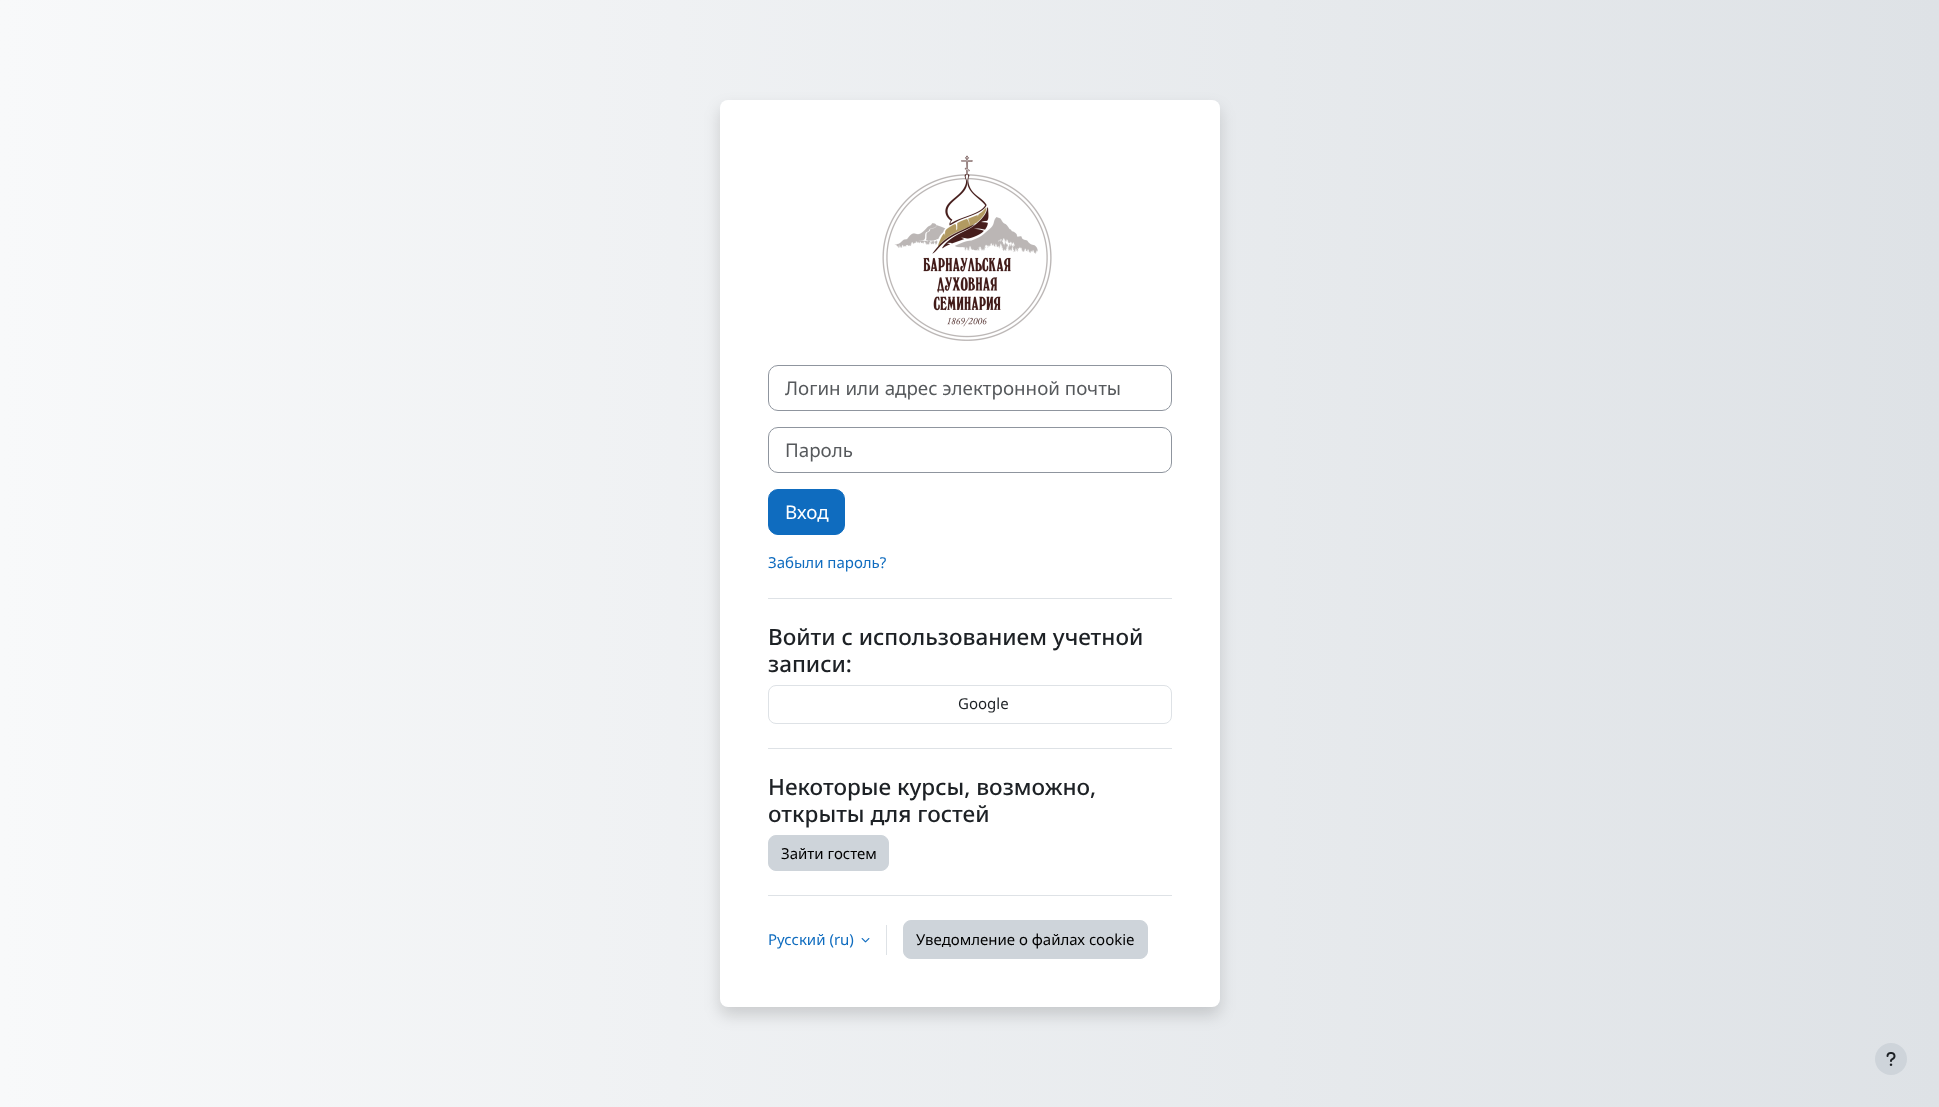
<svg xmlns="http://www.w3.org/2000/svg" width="1939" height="1107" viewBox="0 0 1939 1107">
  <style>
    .t1 { font: 18.75px Noto Sans; fill: #56595c; }
    .t2 { font: 18.75px Noto Sans; fill: #fff; }
    .t3 { font: 15px Noto Sans; fill: #0f6cbf; }
    .t4 { font: 500 22.5px Noto Sans; fill: #1d2125; }
    .t5 { font: 15px Noto Sans; fill: #1d2125; }
    .t6 { font: 15px Noto Sans; fill: #000; }
  </style>
  <defs>
    <linearGradient id="g1" gradientUnits="userSpaceOnUse" x1="0" y1="554" x2="1939" y2="553"><stop offset="0" stop-color="#f8f9fa"/><stop offset="1" stop-color="#dee2e6"/></linearGradient>
  </defs>
  <rect width="100%" height="100%" fill="#fff"/>
  <rect x="0" y="0" width="1939" height="1107" fill="url(#g1)"/>
  <rect x="720" y="108" width="500" height="907" rx="8" fill="#00000026" filter="blur(8px)"/>
  <rect x="720" y="100" width="500" height="907" rx="8" fill="#fff"/>
  <image x="882" y="155" width="170" height="186" href="images/1.png"/>
  <rect x="768.5" y="365.5" width="403" height="45" rx="9.5" fill="none" stroke="#8f959e"/>
  <text x="785" y="395" class="t1">Логин или адрес электронной почты</text>
  <rect x="768.5" y="427.5" width="403" height="45" rx="9.5" fill="none" stroke="#8f959e"/>
  <text x="785" y="457" class="t1">Пароль</text>
  <rect x="768.5" y="489.5" width="76" height="45" rx="9.5" fill="#0f6cbf" stroke="#0f6cbf"/>
  <text x="785" y="519" class="t2">Вход</text>
  <text x="768" y="568" class="t3">Забыли пароль?</text>
  <rect x="768" y="598" width="404" height="1" fill="#dee2e6"/>
  <text x="768" y="645" class="t4">Войти с использованием учетной</text>
  <text x="768" y="672" class="t4">записи:</text>
  <rect x="768.5" y="685.5" width="403" height="38" rx="7.5" fill="none" stroke="#dee2e6"/>
  <text x="958" y="709" class="t5">Google</text>
  <rect x="768" y="748" width="404" height="1" fill="#dee2e6"/>
  <text x="768" y="795" class="t4">Некоторые курсы, возможно,</text>
  <text x="768" y="822" class="t4">открыты для гостей</text>
  <rect x="768.5" y="835.5" width="120" height="35" rx="7.5" fill="#ced4da" stroke="#ced4da"/>
  <text x="781" y="859" class="t6">Зайти гостем</text>
  <rect x="768" y="895" width="404" height="1" fill="#dee2e6"/>
  <text x="768" y="945" class="t3">Русский (ru)</text>
  <image x="861" y="938" width="9" height="5" href="images/2.png"/>
  <rect x="886" y="925" width="1" height="30" fill="#dee2e6"/>
  <rect x="903.5" y="920.5" width="244" height="38" rx="7.5" fill="#ced4da" stroke="#ced4da"/>
  <text x="916" y="945" class="t6">Уведомление о файлах cookie</text>
  <circle cx="1891" cy="1059" r="16" fill="#ced4da"/>
  <image x="1886" y="1052" width="10" height="14" href="images/3.png"/>
</svg>
